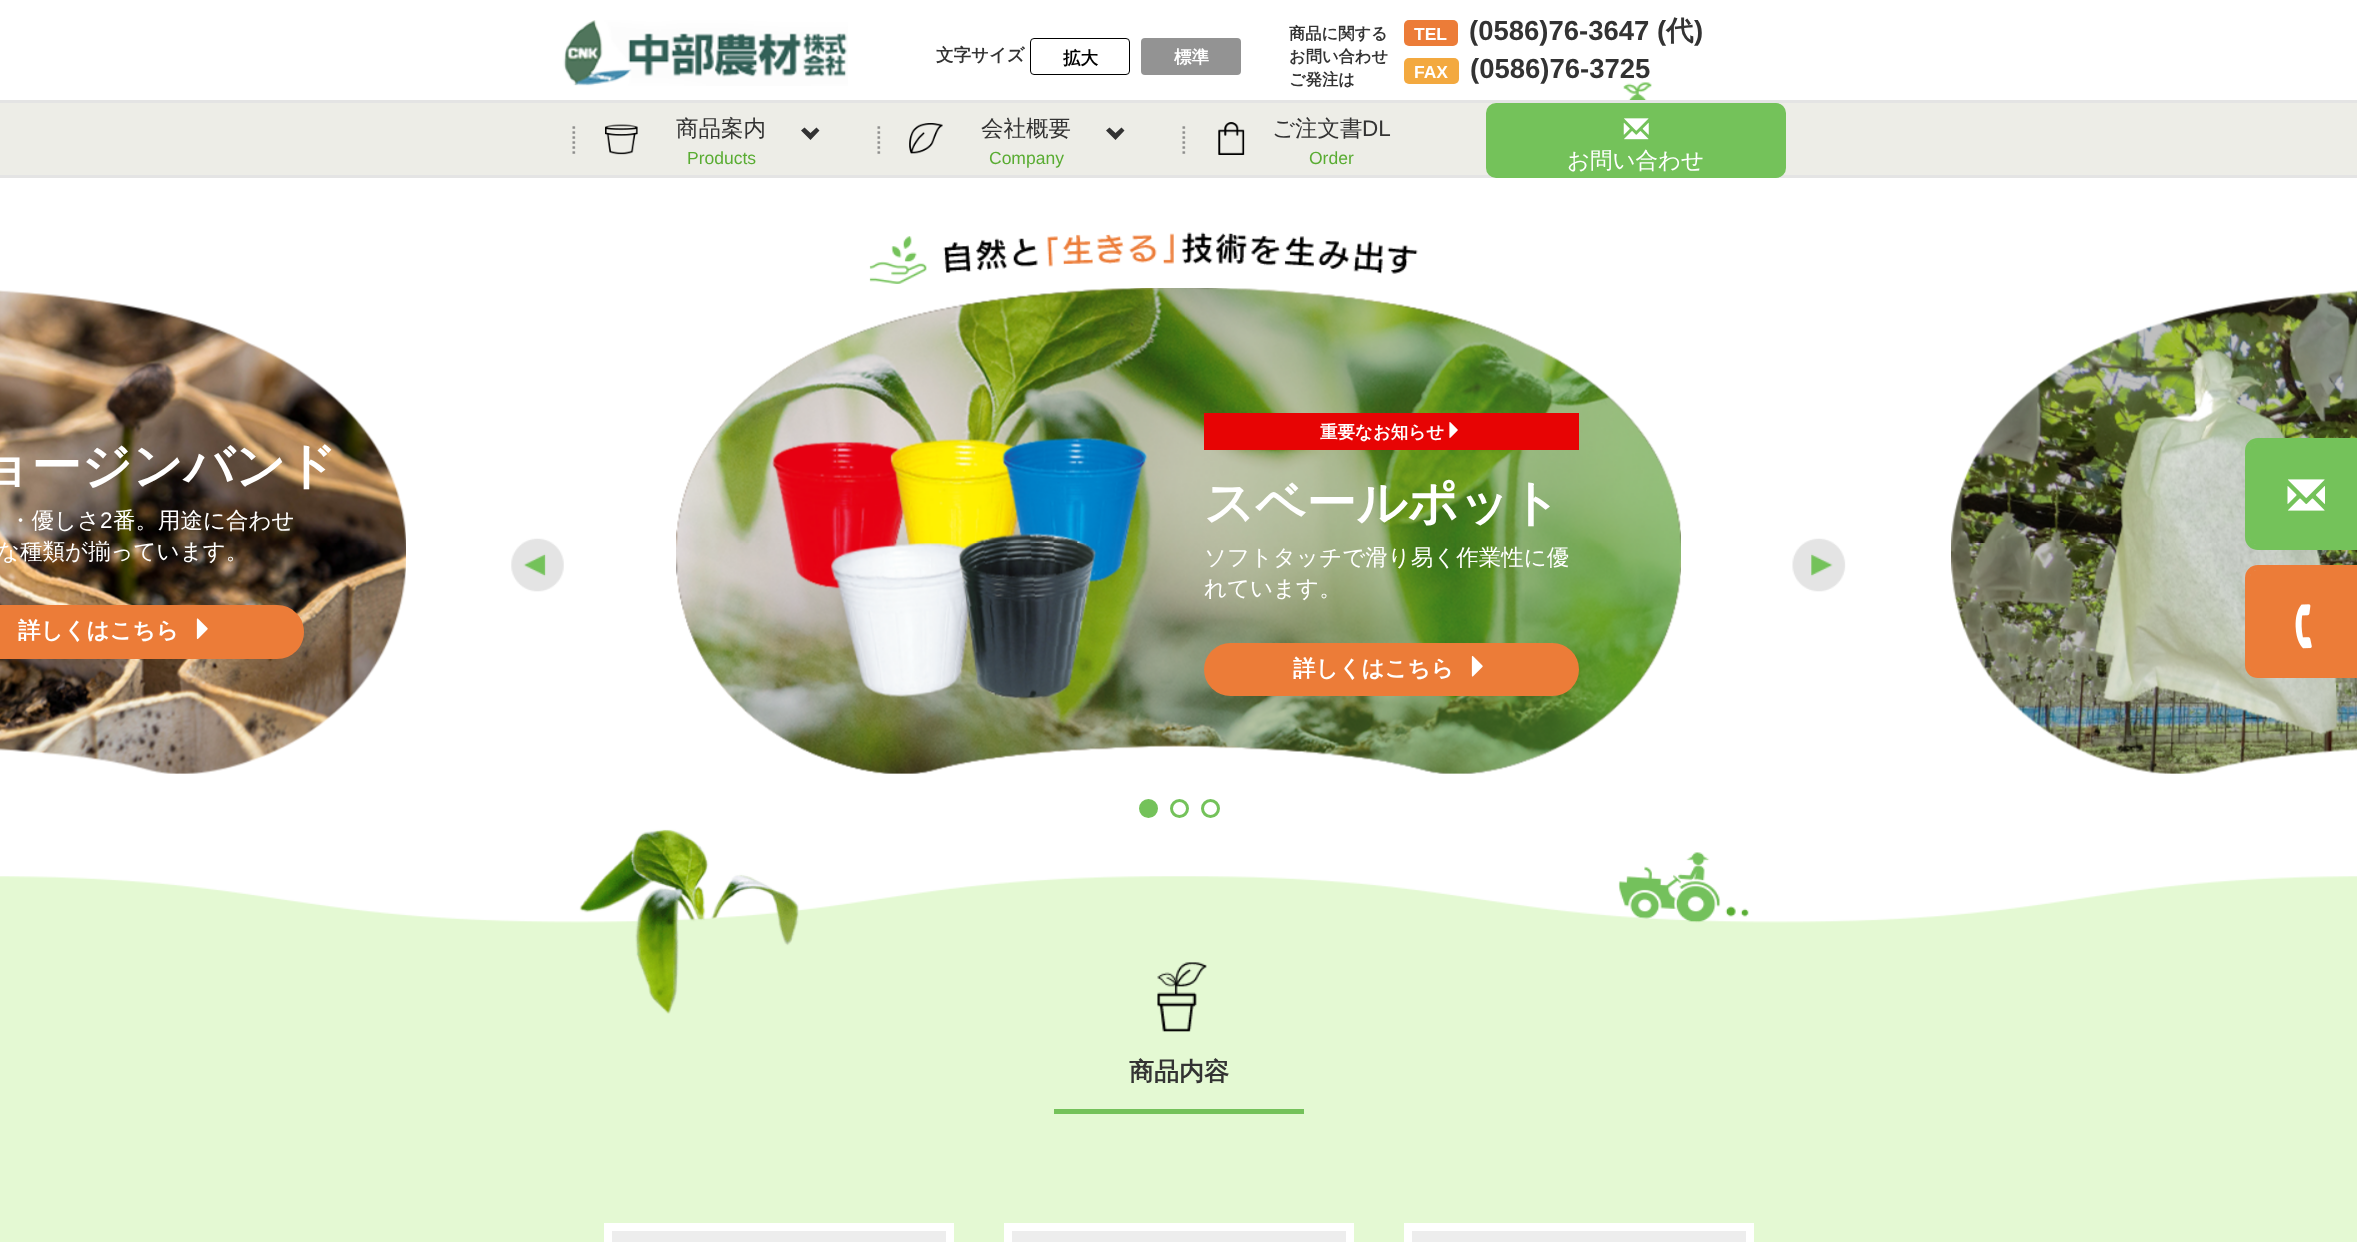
<svg xmlns="http://www.w3.org/2000/svg" width="2357" height="1242" viewBox="0 0 2357 1242">
  <style>
    .t1 { font: bold 17.5px WenQuanYi Zen Hei; fill: #333; }
    .t2 { font: bold 17.5px WenQuanYi Zen Hei; fill: #000; }
    .t3 { font: bold 17.5px WenQuanYi Zen Hei; fill: #fff; }
    .t4 { font: bold 16.25px WenQuanYi Zen Hei; fill: #333; }
    .t5 { font: bold 17.5px Liberation Sans; fill: #fff; }
    .t6 { font: bold 27.5px Liberation Sans; fill: #333; }
    .t7 { font: bold 27.5px WenQuanYi Zen Hei; fill: #333; }
    .t8 { font: 500 22.5px WenQuanYi Zen Hei; fill: #333; }
    .t9 { font: 17.5px Liberation Sans; fill: #59ac32; }
    .t10 { font: 22.5px Liberation Sans; fill: #333; }
    .t11 { font: 500 22.5px WenQuanYi Zen Hei; fill: #fff; }
    .t12 { font: bold 50px WenQuanYi Zen Hei; fill: #fff; }
    .t13 { font: 22.5px Liberation Sans; fill: #fff; }
    .t14 { font: bold 22.5px WenQuanYi Zen Hei; fill: #fff; }
    .t15 { font: bold 25px WenQuanYi Zen Hei; fill: #333; }
  </style>
  <rect width="100%" height="100%" fill="#fff"/>
  <image x="563" y="20" width="285" height="66" href="images/1.png"/>
  <text x="936" y="61" class="t1">文字サイズ</text>
  <rect x="1030.5" y="38.5" width="99" height="36" rx="3.5" fill="none" stroke="#000"/>
  <text x="1063" y="64" class="t2">拡大</text>
  <rect x="1141" y="38" width="100" height="37" rx="4" fill="#939393"/>
  <text x="1174" y="63" class="t3">標準</text>
  <text x="1289" y="39" class="t4">商品に関する</text>
  <text x="1289" y="62" class="t4">お問い合わせ</text>
  <text x="1289" y="85" class="t4">ご発注は</text>
  <rect x="1404" y="20" width="54" height="26" rx="5" fill="#ec7c38"/>
  <text x="1414" y="40" class="t5">TEL</text>
  <text x="1469" y="40" class="t6">(0586)76-3647 (</text>
  <text x="1666" y="40" class="t7">代</text>
  <text x="1694" y="40" class="t6">)</text>
  <rect x="1404" y="58" width="55" height="26" rx="5" fill="#f3a93f"/>
  <text x="1414" y="78" class="t5">FAX</text>
  <text x="1470" y="78" class="t6">(0586)76-3725</text>
  <rect x="0" y="103" width="2357" height="72" fill="#edede7"/>
  <rect x="0" y="100" width="2357" height="3" fill="#e4e4e4"/>
  <rect x="0" y="175" width="2357" height="3" fill="#e4e4e4"/>
  <image x="572" y="126" width="4" height="28" href="images/2.png"/>
  <image x="605" y="124" width="33" height="31" href="images/3.png"/>
  <text x="676" y="136" class="t8">商品案内</text>
  <path d="M819.5 130.5L810.5 140L801 130.5L804.5 127.5L810.5 133L816.5 127.5Z" fill="#333"/>
  <text x="687" y="164" class="t9">Products</text>
  <image x="877" y="126" width="4" height="28" href="images/2.png"/>
  <image x="909" y="123" width="34" height="31" href="images/4.png"/>
  <text x="981" y="136" class="t8">会社概要</text>
  <path d="M1124.5 130.5L1115.5 140L1106 130.5L1109.5 127.5L1115.5 133L1121.5 127.5Z" fill="#333"/>
  <text x="989" y="164" class="t9">Company</text>
  <image x="1182" y="126" width="4" height="28" href="images/2.png"/>
  <image x="1218" y="122" width="27" height="33" href="images/5.png"/>
  <text x="1272" y="136" class="t8">ご注文書</text>
  <text x="1362" y="136" class="t10">DL</text>
  <text x="1309" y="164" class="t9">Order</text>
  <rect x="1486" y="103" width="300" height="75" rx="10" fill="#74c25a"/>
  <image x="1623" y="82" width="29" height="18" href="images/6.png"/>
  <image x="1623" y="118" width="26" height="22" href="images/7.png"/>
  <text x="1567" y="168" class="t11">お問い合わせ</text>
  <image x="869" y="232" width="549" height="52" href="images/8.png"/>
  <image x="0" y="290" width="406" height="484" href="images/9.png"/>
  <text x="-20" y="483" class="t12">ョージンバンド</text>
  <text x="9" y="528" class="t11">・優しさ</text>
  <text x="100" y="528" class="t13">2</text>
  <text x="113" y="528" class="t11">番。用途に合わせ</text>
  <text x="-3" y="559" class="t11">な種類が揃っています。</text>
  <path d="M0 605H277C292 605 304 617 304 632C304 647 292 659 277 659H0Z" fill="#ec7c38"/>
  <text x="18" y="638" class="t14">詳しくはこちら</text>
  <image x="196" y="618" width="12" height="22" href="images/10.png"/>
  <image x="676" y="288" width="1005" height="486" href="images/11.png"/>
  <rect x="1204" y="413" width="375" height="37" fill="#e70404"/>
  <text x="1320" y="438" class="t3">重要なお知らせ</text>
  <image x="1449" y="422" width="9" height="16" href="images/12.png"/>
  <text x="1204" y="520" class="t12">スベールポット</text>
  <text x="1204" y="565" class="t11">ソフトタッチで滑り易く作業性に優</text>
  <text x="1204" y="596" class="t11">れています。</text>
  <rect x="1204" y="643" width="375" height="53" rx="26.5" fill="#ec7c38"/>
  <text x="1293" y="676" class="t14">詳しくはこちら</text>
  <image x="1471" y="655" width="12" height="22" href="images/13.png"/>
  <image x="1951" y="290" width="406" height="484" href="images/14.png"/>
  <image x="511" y="538" width="53" height="54" href="images/15.png"/>
  <image x="1792" y="538" width="54" height="54" href="images/16.png"/>
  <circle cx="1148.5" cy="808.5" r="8" fill="#74c25a" stroke="#74c25a" stroke-width="3"/>
  <circle cx="1179.5" cy="808.5" r="8" fill="none" stroke="#74c25a" stroke-width="3"/>
  <circle cx="1210.5" cy="808.5" r="8" fill="none" stroke="#74c25a" stroke-width="3"/>
  <path d="M2258 440.5H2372.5V547.5H2258C2252 547.5 2247.5 543 2247.5 537V451C2247.5 445 2252 440.5 2258 440.5Z" fill="none" stroke="#74c25a" stroke-width="5"/>
  <rect x="2250" y="443" width="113" height="102" rx="6" fill="#74c25a"/>
  <image x="2287" y="479" width="38" height="32" href="images/17.png"/>
  <path d="M2258 567.5H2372.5V675.5H2258C2252 675.5 2247.5 671 2247.5 665V578C2247.5 572 2252 567.5 2258 567.5Z" fill="none" stroke="#ec7c38" stroke-width="5"/>
  <rect x="2250" y="570" width="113" height="103" rx="6" fill="#ec7c38"/>
  <image x="2295" y="604" width="17" height="45" href="images/18.png"/>
  <rect x="0" y="1014" width="2357" height="228" fill="#e4f9d3"/>
  <rect x="608" y="1227" width="342" height="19" fill="#ededed" stroke="#fff" stroke-width="8"/>
  <rect x="1008" y="1227" width="342" height="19" fill="#ededed" stroke="#fff" stroke-width="8"/>
  <rect x="1408" y="1227" width="342" height="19" fill="#ededed" stroke="#fff" stroke-width="8"/>
  <image x="0" y="823" width="2357" height="191" href="images/19.png"/>
  <image x="1157" y="962" width="50" height="70" href="images/20.png"/>
  <rect x="1054" y="1109" width="250" height="5" fill="#74c25a"/>
  <text x="1129" y="1080" class="t15">商品内容</text>
</svg>
